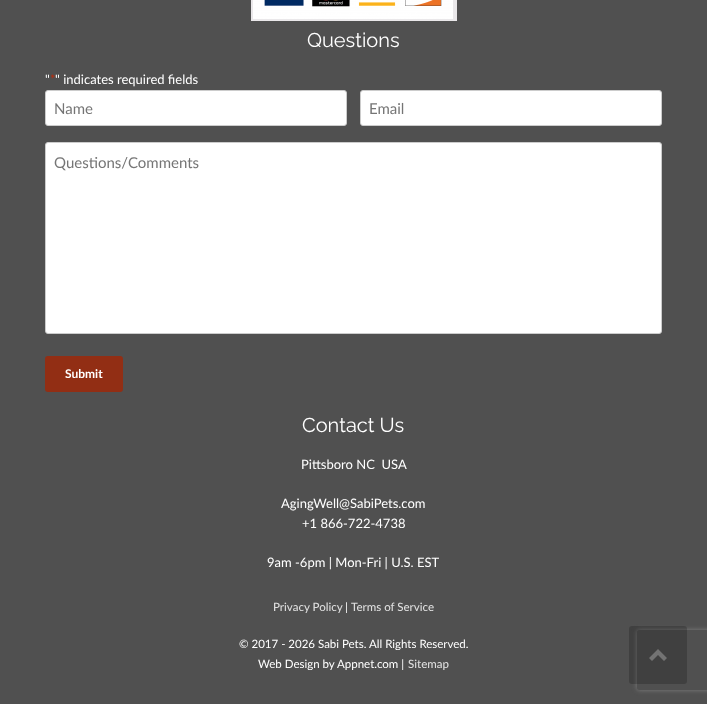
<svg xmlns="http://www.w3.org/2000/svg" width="707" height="704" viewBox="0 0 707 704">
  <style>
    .t1 { font: 100 20px Raleway; fill: #fff; }
    .t2 { font: 13px Lato; fill: #fff; }
    .t3 { font: 13px Lato; fill: #c02b0a; }
    .t4 { font: 15px Lato; fill: #757575; }
    .t5 { font: bold 12px Lato; fill: #fff; }
    .t6 { font: 500 11.5px Lato; fill: #ddd; }
    .t7 { font: 11.5px Lato; fill: #fff; }
  </style>
  <defs>
    <clipPath id="clip1"><path d="M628 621H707V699H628ZM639 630H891C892 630 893 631 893 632V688C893 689 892 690 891 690H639C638 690 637 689 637 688V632C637 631 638 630 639 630Z" clip-rule="evenodd"/></clipPath>
  </defs>
  <rect width="100%" height="100%" fill="#505050"/>
  <image x="251" y="0" width="206" height="21" href="images/1.png"/>
  <text x="307" y="47" class="t1">Questions</text>
  <text x="45" y="84" class="t2">"</text>
  <text x="50" y="84" class="t3">*</text>
  <text x="55" y="84" class="t2">" indicates required fields</text>
  <rect x="45.5" y="90.5" width="301" height="35" rx="2.5" fill="#fff" stroke="#ccc"/>
  <text x="54" y="114" class="t4">Name</text>
  <rect x="360.5" y="90.5" width="301" height="35" rx="2.5" fill="#fff" stroke="#ccc"/>
  <text x="369" y="114" class="t4">Email</text>
  <rect x="45.5" y="142.5" width="616" height="191" rx="2.5" fill="#fff" stroke="#ccc"/>
  <text x="54" y="168" class="t4">Questions/Comments</text>
  <rect x="45" y="356" width="78" height="36" rx="3" fill="#922e14"/>
  <text x="65" y="378" class="t5">Submit</text>
  <text x="302" y="432" class="t1">Contact Us</text>
  <text x="301" y="469" class="t2" xml:space="preserve">Pittsboro NC  USA</text>
  <text x="281" y="508" class="t2">AgingWell@SabiPets.com</text>
  <text x="302" y="528" class="t2">+1 866-722-4738</text>
  <text x="267" y="567" class="t2">9am -6pm | Mon-Fri | U.S. EST</text>
  <text x="273" y="611" class="t6">Privacy Policy</text>
  <text x="345" y="611" class="t7">|</text>
  <text x="351" y="611" class="t6">Terms of Service</text>
  <text x="239" y="648" class="t7">© 2017 - 2026 Sabi Pets. All Rights Reserved.</text>
  <text x="258" y="668" class="t7">Web Design by Appnet.com |</text>
  <text x="408" y="668" class="t6">Sitemap</text>
  <g clip-path="url(#clip1)">
    <rect x="637" y="630" width="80" height="60" rx="2" fill="#808080" filter="blur(2.5px)"/>
  </g>
  <rect x="629" y="626" width="58" height="58" rx="3" fill="#00000033"/>
  <path d="M667 658L658 649L649 658L652 661L658 655L664 661Z" fill="#737373"/>
</svg>
